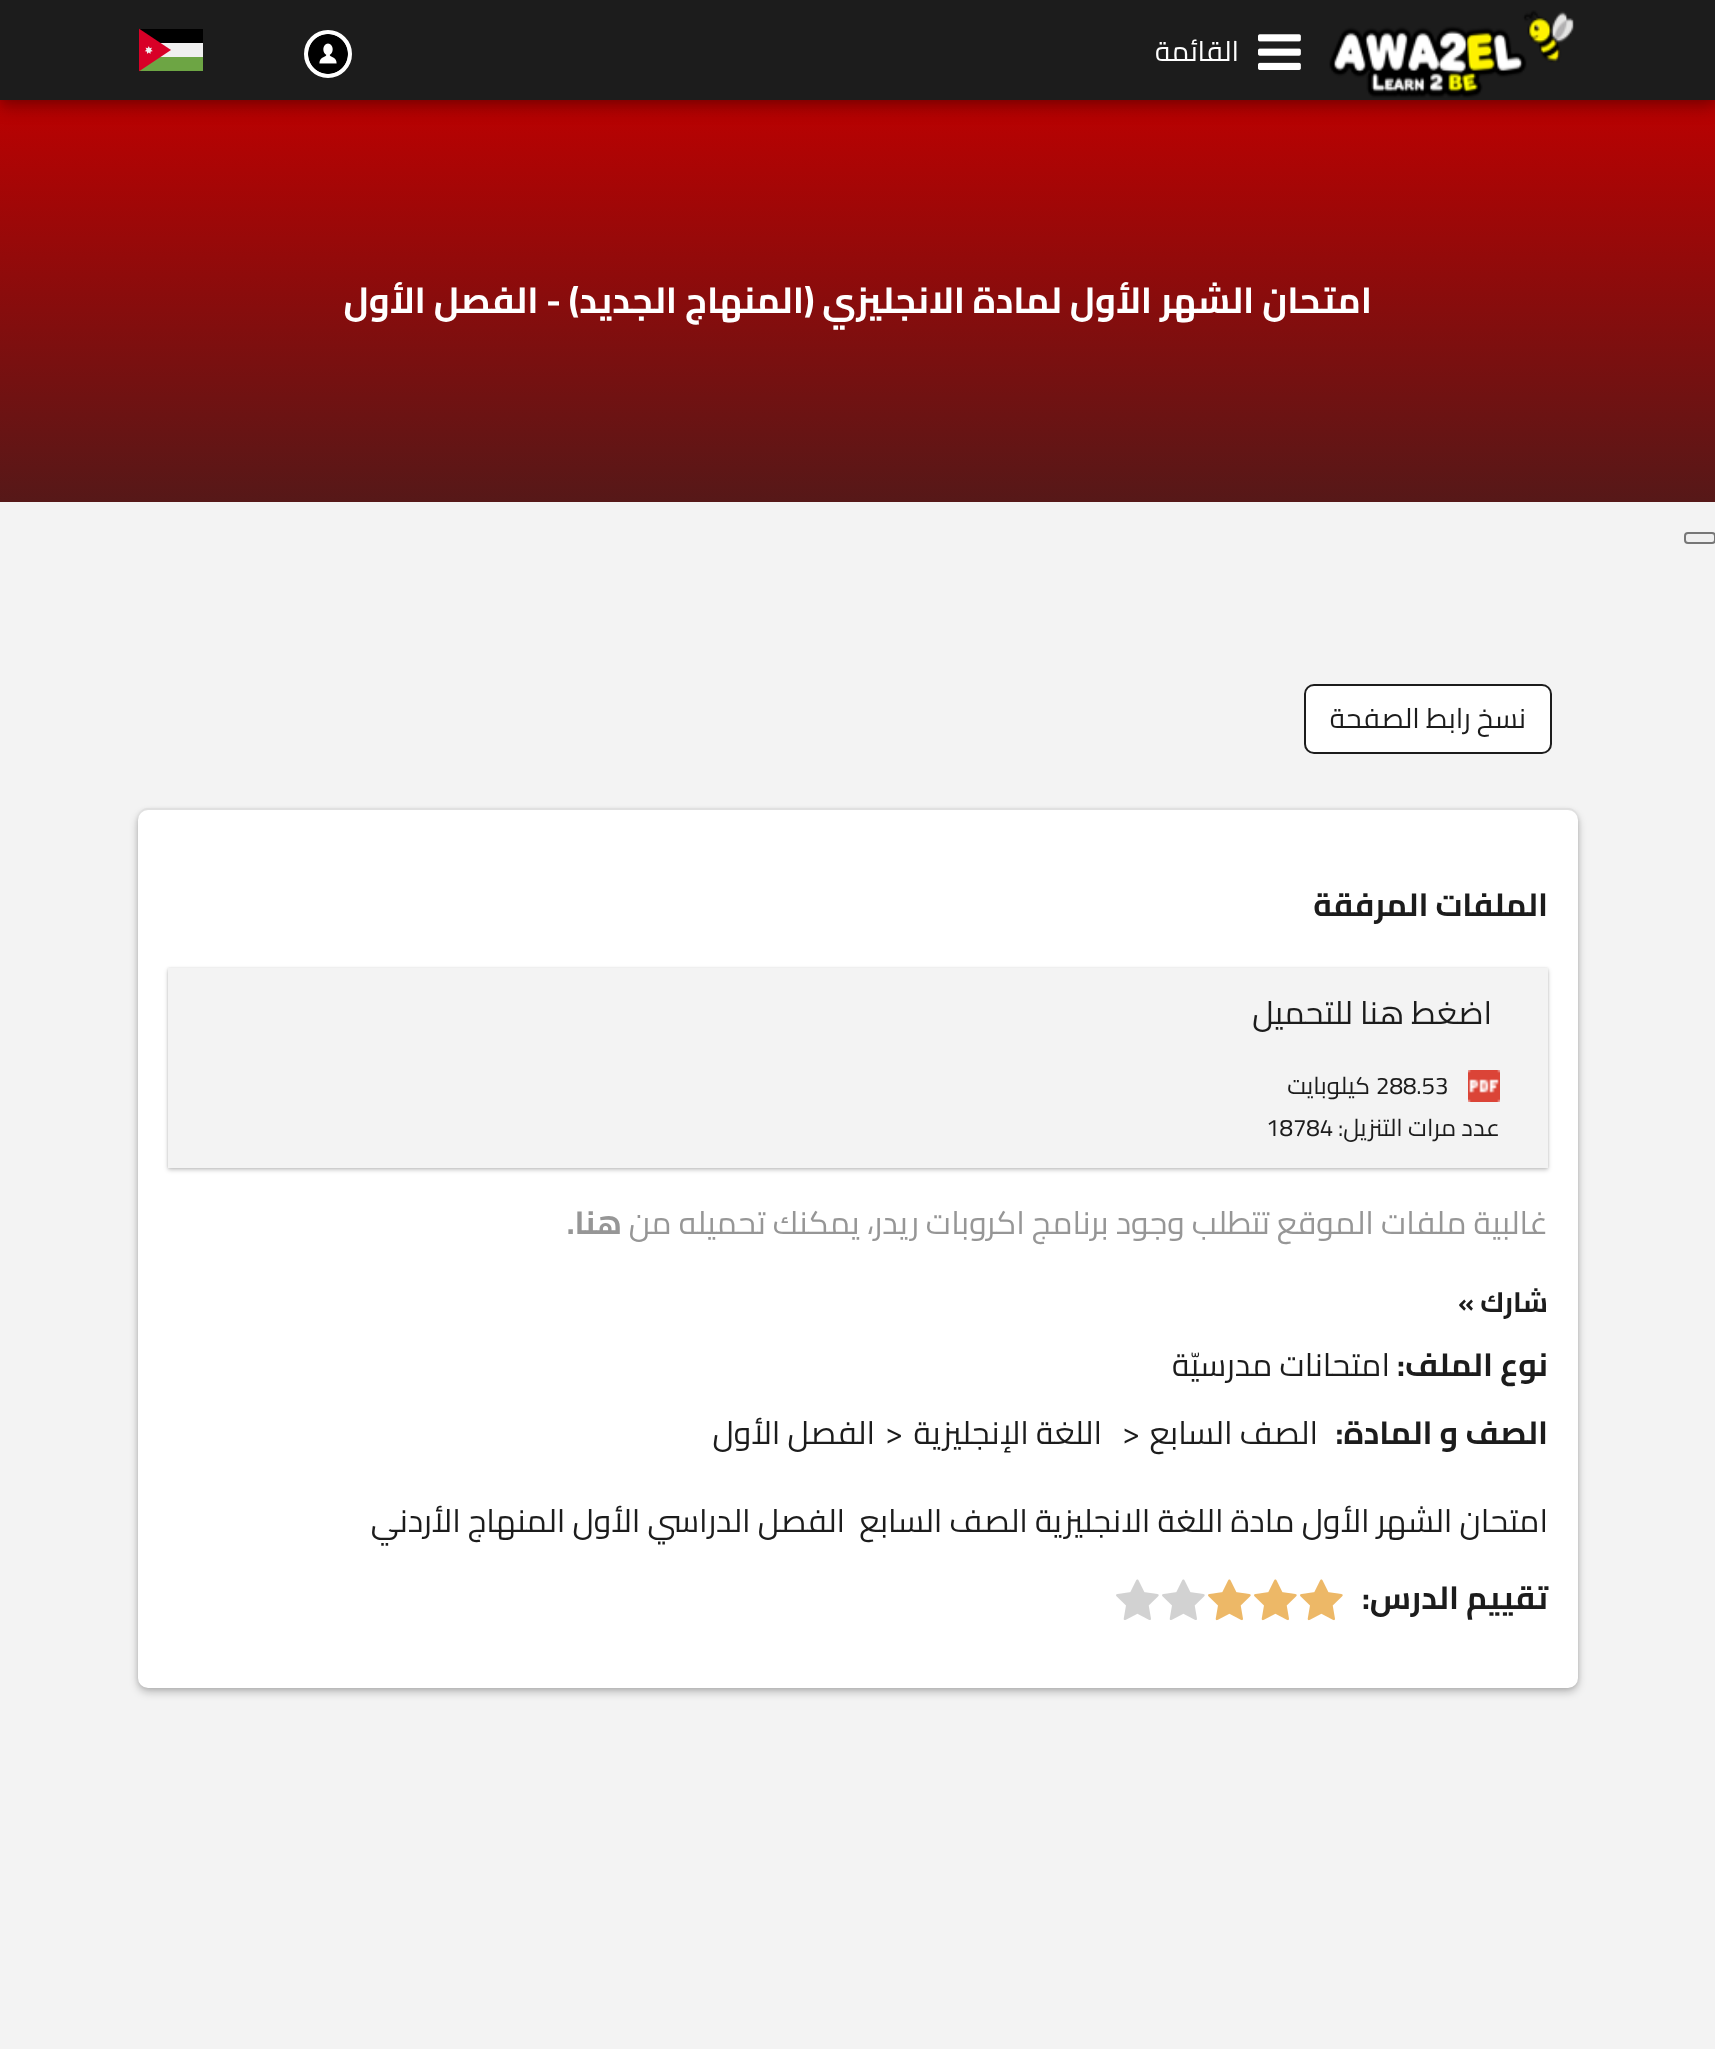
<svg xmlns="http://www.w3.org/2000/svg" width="1715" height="2049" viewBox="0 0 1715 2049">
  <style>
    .t1 { font: 28px Cairo; direction: rtl; fill: #fff; }
    .t2 { font: bold 36px Cairo; direction: rtl; fill: #fff; }
    .t3 { font: 28px Cairo; direction: rtl; fill: #1c1c1c; }
    .t4 { font: bold 32px Cairo; direction: rtl; fill: #1c1c1c; }
    .t5 { font: 32px Cairo; direction: rtl; fill: #1c1c1c; }
    .t6 { font: 24px Cairo; fill: #1c1c1c; }
    .t7 { font: 24px Cairo; direction: rtl; fill: #1c1c1c; }
    .t8 { font: 32px Cairo; direction: rtl; fill: #969696; }
    .t9 { font: bold 32px Cairo; direction: rtl; fill: #969696; }
    .t10 { font: bold 28px Cairo; direction: rtl; fill: #1c1c1c; }
    .t11 { font: 32px Cairo; fill: #1c1c1c; }
  </style>
  <defs>
    <linearGradient id="g1" gradientUnits="userSpaceOnUse" x1="858" y1="100" x2="858" y2="502"><stop offset="0" stop-color="#bb0101"/><stop offset="1" stop-color="#561818"/></linearGradient>
  </defs>
  <rect width="100%" height="100%" fill="#f3f3f3"/>
  <rect x="0" y="100" width="1715" height="402" fill="url(#g1)"/>
  <rect x="0" y="8" width="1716" height="100" fill="#00000047" filter="blur(8px)"/>
  <rect x="0" y="0" width="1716" height="100" fill="#00000024" filter="blur(4px)"/>
  <rect x="0" y="0" width="1715" height="100" fill="#1c1c1c"/>
  <image x="1329" y="10" width="245" height="88" href="images/1.png"/>
  <image x="1258" y="34" width="43" height="36" href="images/2.png"/>
  <text x="1239" y="61" class="t1">القائمة</text>
  <circle cx="328" cy="54" r="22" fill="#fff" stroke="#fff" stroke-width="4"/>
  <image x="308" y="34" width="40" height="40" href="images/3.png"/>
  <image x="139" y="28" width="64" height="44" href="images/4.png"/>
  <text x="1372" y="313" class="t2">امتحان الشهر الأول لمادة الانجليزي (المنهاج الجديد) - الفصل الأول</text>
  <rect x="1685" y="533" width="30" height="10" rx="3" fill="#efefef" stroke="#767676" stroke-width="2"/>
  <rect x="1305" y="685" width="246" height="68" rx="9" fill="#fff" stroke="#1c1c1c" stroke-width="2"/>
  <text x="1526" y="728" class="t3">نسخ رابط الصفحة</text>
  <rect x="138" y="814" width="1440" height="878" rx="10" fill="#0000003d" filter="blur(4px)"/>
  <rect x="138" y="810" width="1440" height="878" rx="10" fill="#0000001f" filter="blur(2px)"/>
  <path d="M148 808C141 808 138 814 138 820C138 814 142 810 148 810H1568C1574 810 1578 814 1578 820C1578 814 1575 808 1568 808Z" fill="#e0e0e0"/>
  <rect x="138" y="810" width="1440" height="878" rx="10" fill="#fff"/>
  <text x="1548" y="916" class="t4">الملفات المرفقة</text>
  <rect x="168" y="970" width="1380" height="200" fill="#00000038" filter="blur(2px)"/>
  <rect x="168" y="968" width="1380" height="200" fill="#0000001c" filter="blur(1px)"/>
  <rect x="168" y="968" width="1380" height="200" fill="#f3f3f3"/>
  <text x="1492" y="1024" class="t5">اضغط هنا للتحميل</text>
  <image x="1468" y="1070" width="32" height="32" href="images/5.png"/>
  <text x="1376" y="1094" class="t6">288.53</text>
  <text x="1370" y="1094" class="t7">كيلوبايت</text>
  <text x="1500" y="1136" class="t7">عدد مرات التنزيل:</text>
  <text x="1266" y="1136" class="t6">18784</text>
  <text x="1548" y="1234" class="t8">غالبية ملفات الموقع تتطلب وجود برنامج اكروبات ريدر، يمكنك تحميله من</text>
  <text x="622" y="1234" class="t9">هنا.</text>
  <text x="1548" y="1312" class="t10">شارك »</text>
  <text x="1548" y="1376" class="t4">نوع الملف:</text>
  <text x="1390" y="1376" class="t5">امتحانات مدرسيّة</text>
  <text x="1548" y="1444" class="t4">الصف و المادة:</text>
  <text x="1318" y="1444" class="t5">الصف السابع</text>
  <text x="1122" y="1444" class="t11">&gt;</text>
  <text x="1102" y="1444" class="t5">اللغة الإنجليزية</text>
  <text x="885" y="1444" class="t11">&gt;</text>
  <text x="875" y="1444" class="t5">الفصل الأول</text>
  <text x="1548" y="1532" class="t5" xml:space="preserve">امتحان الشهر الأول مادة اللغة الانجليزية الصف السابع  الفصل الدراسي الأول المنهاج الأردني</text>
  <text x="1548" y="1609" class="t4">تقييم الدرس:</text>
  <image x="1300" y="1579" width="43" height="42" href="images/6.png"/>
  <image x="1254" y="1579" width="43" height="42" href="images/6.png"/>
  <image x="1208" y="1579" width="43" height="42" href="images/6.png"/>
  <image x="1162" y="1579" width="43" height="41" href="images/7.png"/>
  <image x="1116" y="1579" width="43" height="41" href="images/7.png"/>
</svg>
